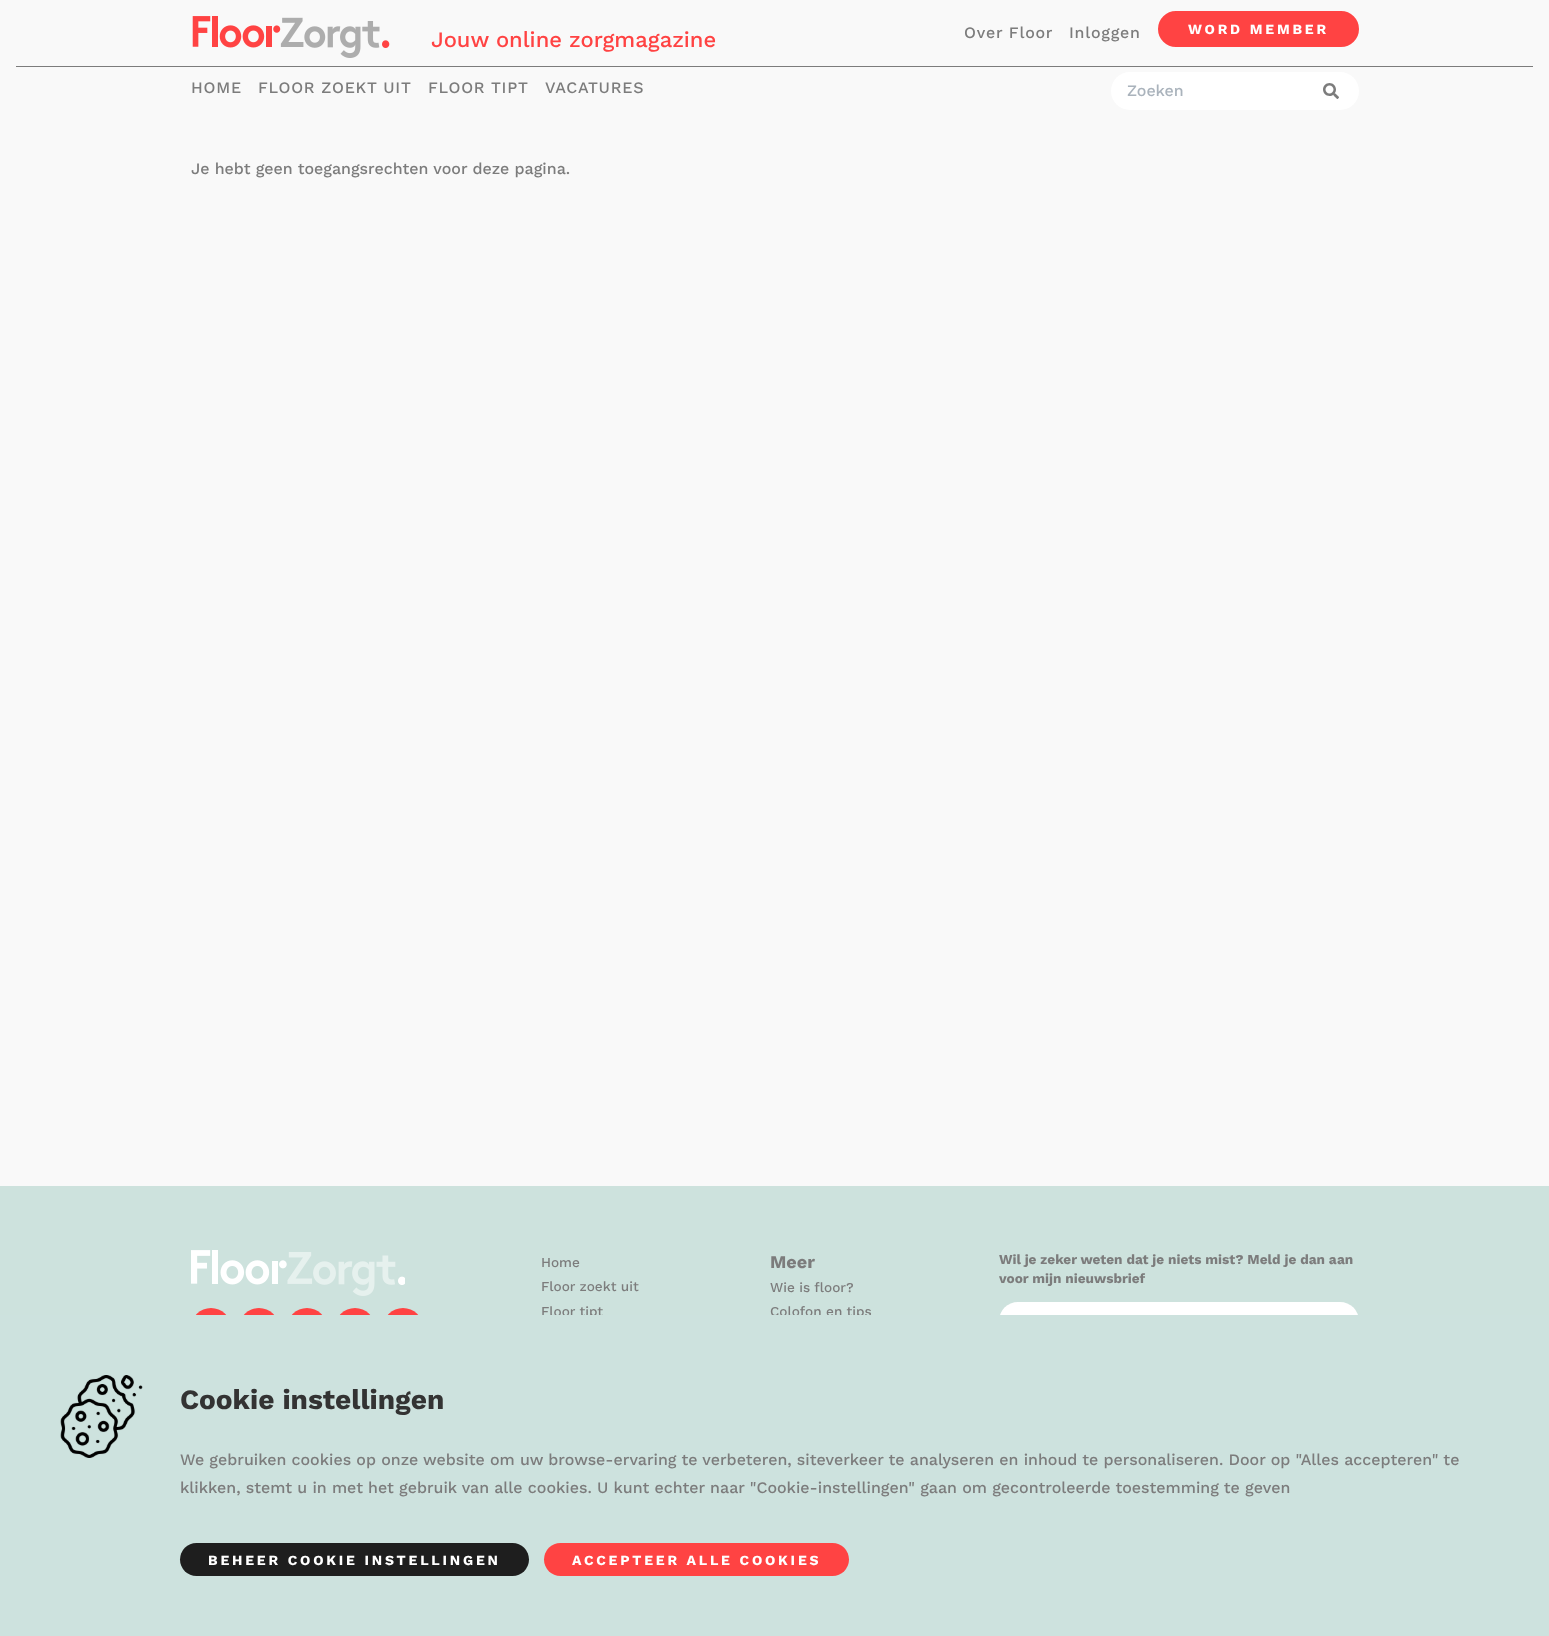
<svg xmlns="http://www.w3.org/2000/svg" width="1549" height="1636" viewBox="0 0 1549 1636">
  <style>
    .t1 { font: 500 22px Work Sans; fill: #ff4343; }
    .t2 { font: 500 16px Work Sans; letter-spacing: 0.75px; fill: #7c7c7c; }
    .t3 { font: bold 14px Work Sans; letter-spacing: 2.8px; fill: #fff; }
    .t4 { font: 500 16px Work Sans; fill: #aab3bc; }
    .t5 { font: 500 16px Work Sans; fill: #7c7c7c; }
    .t6 { font: 500 13.6px Work Sans; fill: #7c7c7c; }
    .t7 { font: bold 18px Work Sans; fill: #7c7c7c; }
    .t8 { font: bold 13.6px Work Sans; fill: #7c7c7c; }
    .t9 { font: bold 28px Work Sans; fill: #333; }
  </style>
  <rect width="100%" height="100%" fill="#f9f9f9"/>
  <image x="192" y="16" width="198" height="42" href="images/1.png"/>
  <text x="431" y="47" class="t1">Jouw online zorgmagazine</text>
  <text x="964" y="38" class="t2">Over Floor</text>
  <text x="1069" y="38" class="t2">Inloggen</text>
  <rect x="1159" y="12" width="199" height="34" rx="17" fill="#ff4343" stroke="#ff4343" stroke-width="2"/>
  <text x="1188" y="34" class="t3">WORD MEMBER</text>
  <rect x="16" y="66" width="1517" height="1" fill="#7c7c7c"/>
  <text x="191" y="93" class="t2">HOME</text>
  <text x="258" y="93" class="t2">FLOOR ZOEKT UIT</text>
  <text x="428" y="93" class="t2">FLOOR TIPT</text>
  <text x="545" y="93" class="t2">VACATURES</text>
  <rect x="1111" y="72" width="248" height="38" rx="19" fill="#fff"/>
  <text x="1127" y="96" class="t4">Zoeken</text>
  <image x="1323" y="83" width="16" height="16" href="images/2.png"/>
  <text x="191" y="174" class="t5">Je hebt geen toegangsrechten voor deze pagina.</text>
  <rect x="0" y="1186" width="1549" height="129" fill="#cde2dd"/>
  <image x="191" y="1250" width="214" height="46" href="images/3.png"/>
  <circle cx="211" cy="1328" r="20" fill="#ff4343"/>
  <circle cx="259" cy="1328" r="20" fill="#ff4343"/>
  <circle cx="307" cy="1328" r="20" fill="#ff4343"/>
  <circle cx="355" cy="1328" r="20" fill="#ff4343"/>
  <circle cx="403" cy="1328" r="20" fill="#ff4343"/>
  <text x="541" y="1267" class="t6">Home</text>
  <text x="541" y="1291" class="t6">Floor zoekt uit</text>
  <text x="541" y="1316" class="t6">Floor tipt</text>
  <text x="770" y="1268" class="t7">Meer</text>
  <text x="770" y="1292" class="t6">Wie is floor?</text>
  <text x="770" y="1316" class="t6">Colofon en tips</text>
  <text x="999" y="1264" class="t8">Wil je zeker weten dat je niets mist? Meld je dan aan</text>
  <text x="999" y="1283" class="t8">voor mijn nieuwsbrief</text>
  <rect x="999" y="1302" width="360" height="38" rx="19" fill="#fff"/>
  <rect x="0" y="1315" width="1549" height="321" fill="#cde2de"/>
  <image x="60" y="1375" width="83" height="83" href="images/4.png"/>
  <text x="180" y="1409" class="t9">Cookie instellingen</text>
  <text x="180" y="1465" class="t5">We gebruiken cookies op onze website om uw browse-ervaring te verbeteren, siteverkeer te analyseren en inhoud te personaliseren. Door op "Alles accepteren" te</text>
  <text x="180" y="1493" class="t5">klikken, stemt u in met het gebruik van alle cookies. U kunt echter naar "Cookie-instellingen" gaan om gecontroleerde toestemming te geven</text>
  <rect x="180" y="1543" width="349" height="33" rx="16.5" fill="#1e1e1e"/>
  <text x="208" y="1565" class="t3">BEHEER COOKIE INSTELLINGEN</text>
  <rect x="544" y="1543" width="305" height="33" rx="16.5" fill="#ff4343"/>
  <text x="572" y="1565" class="t3">ACCEPTEER ALLE COOKIES</text>
</svg>
